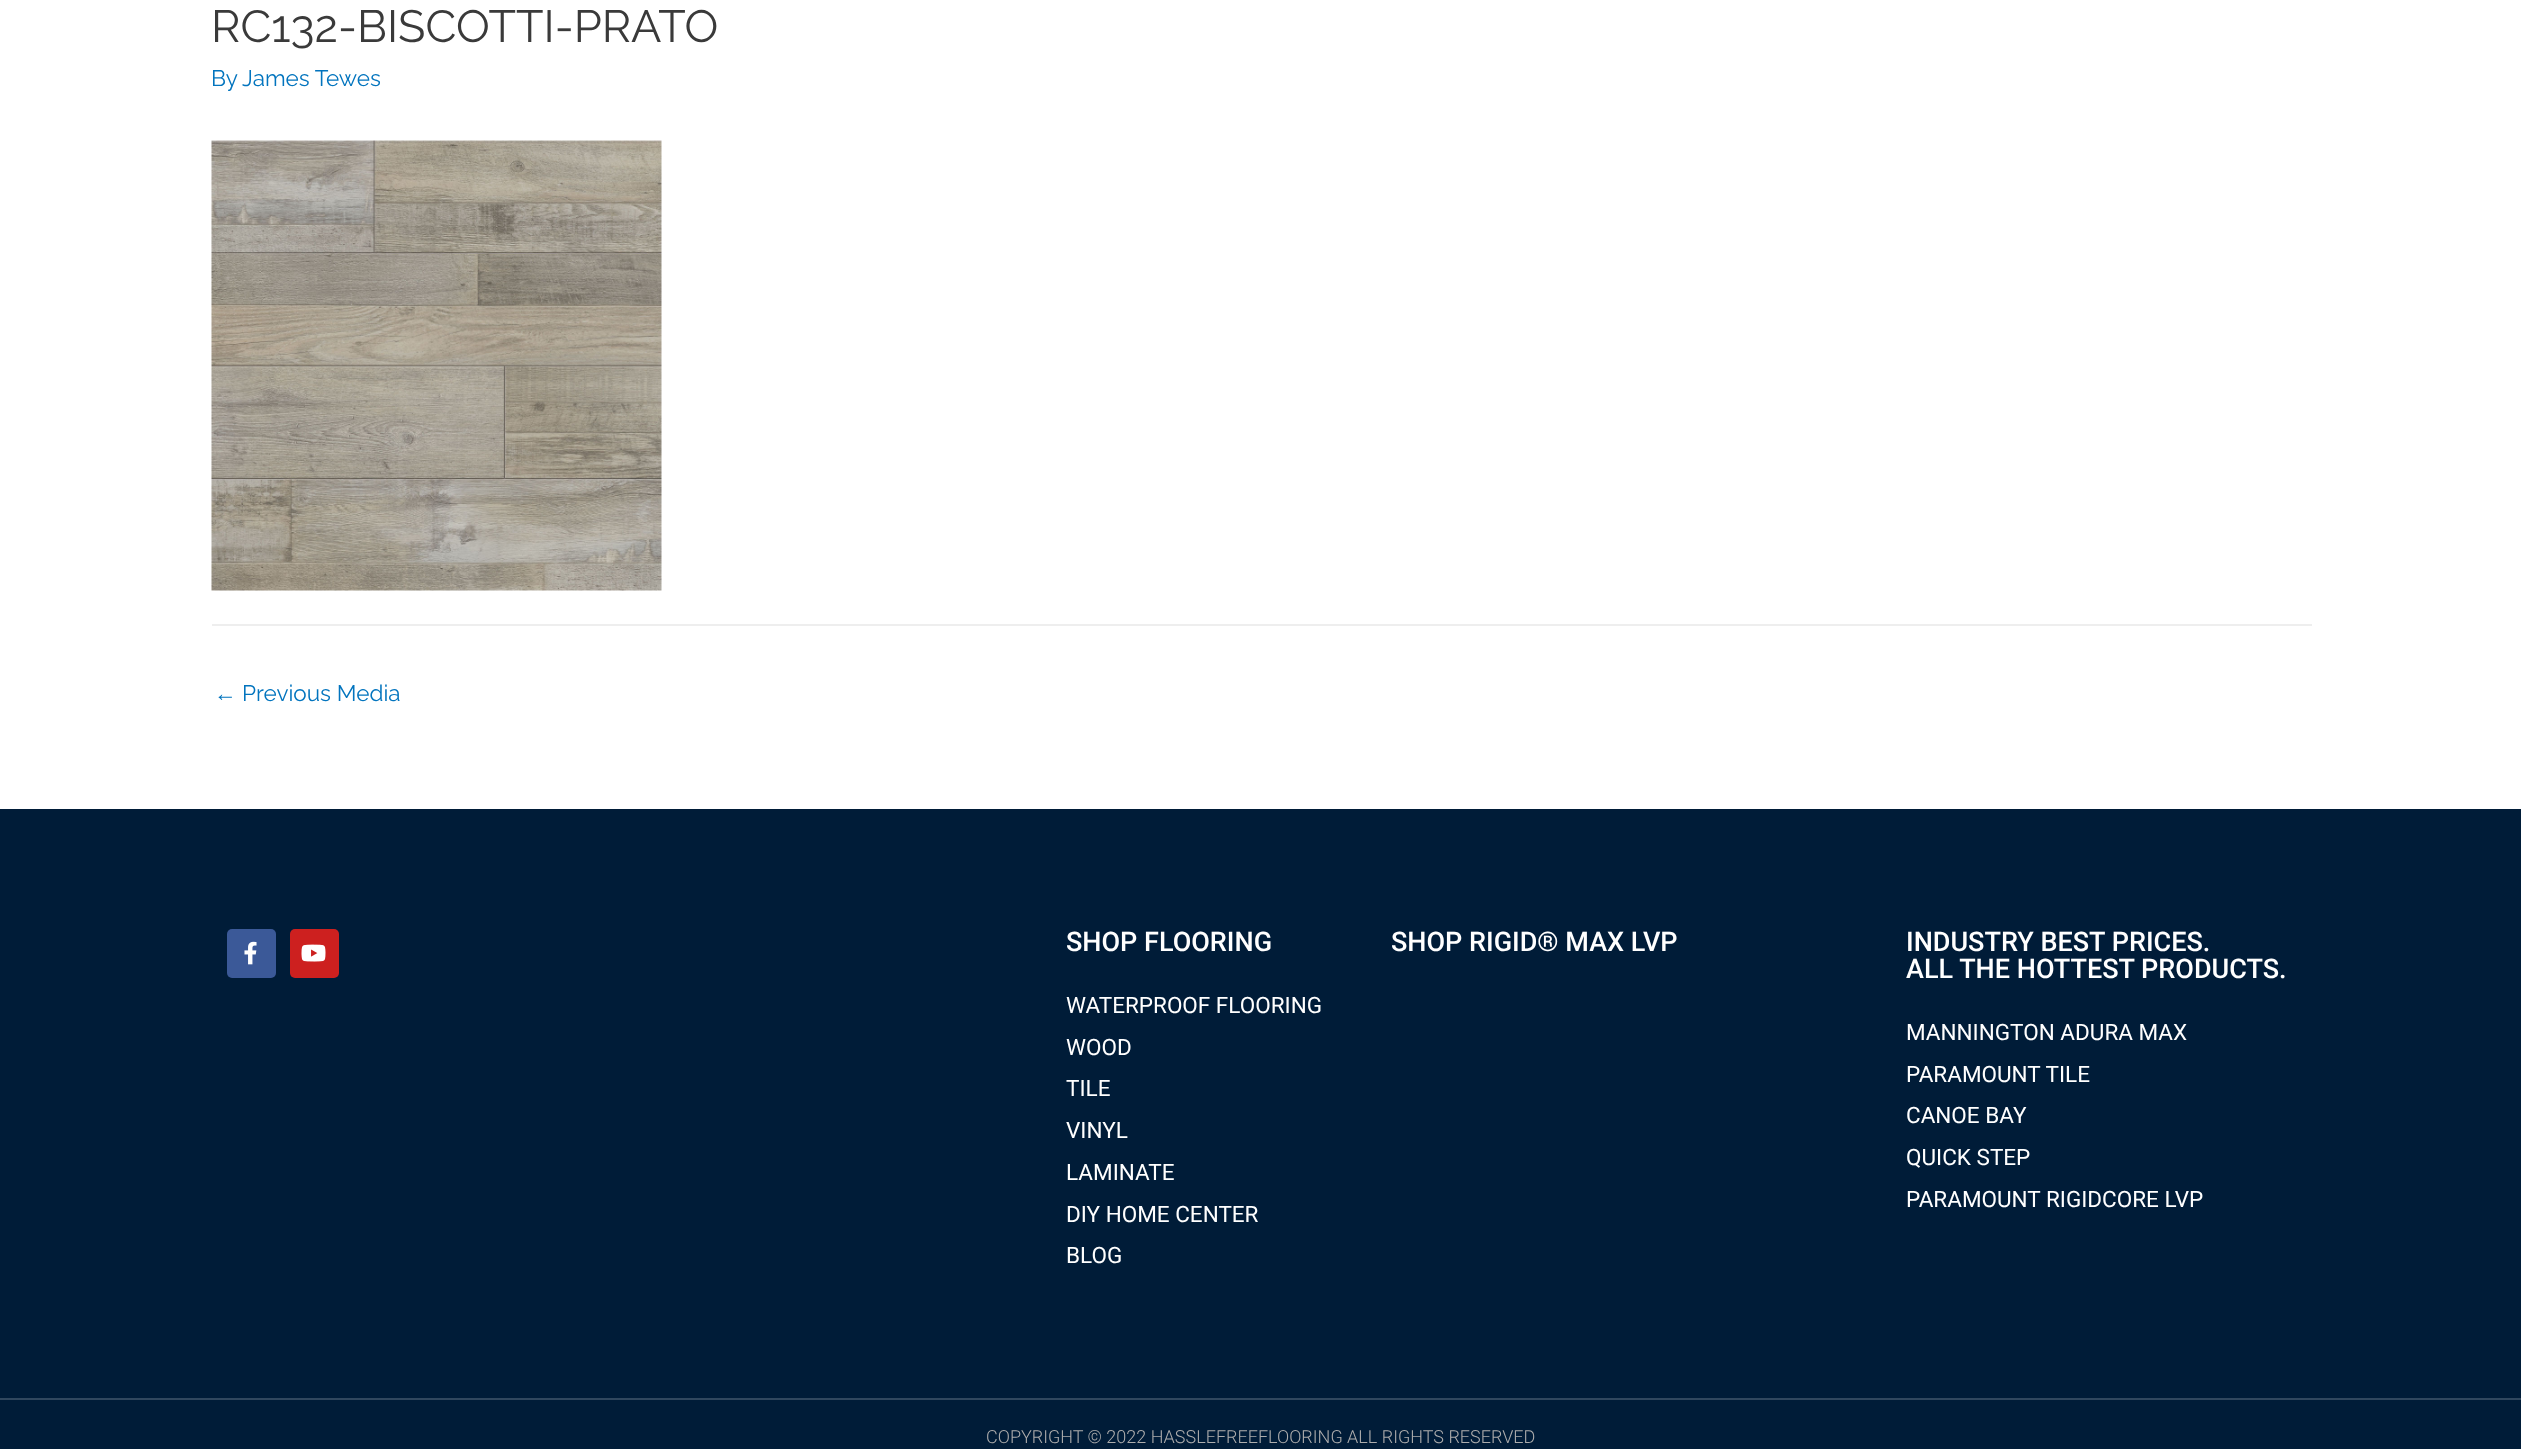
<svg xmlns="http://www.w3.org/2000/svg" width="2521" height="1449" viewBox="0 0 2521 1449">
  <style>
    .t1 { font: 45px Raleway; fill: #3a3a3a; }
    .t2 { font: 22.5px Raleway; fill: #0274be; }
    .t3 { font: 22.5px Liberation Sans; fill: #0274be; }
    .t4 { font: 500 27px Roboto; fill: #fff; }
    .t5 { font: 22.5px Roboto; fill: #fff; }
    .t6 { font: 300 18px Roboto; fill: #adadad; }
  </style>
  <rect width="100%" height="100%" fill="#fff"/>
  <text x="211" y="42" class="t1">RC132-BISCOTTI-PRATO</text>
  <text x="211" y="86" class="t2">By</text>
  <text x="242" y="86" class="t2">James Tewes</text>
  <image x="211" y="140" width="451" height="451" href="images/1.png"/>
  <rect x="212" y="624" width="2100" height="2" fill="#eee"/>
  <text x="214" y="701" class="t3">←</text>
  <text x="242" y="701" class="t2">Previous Media</text>
  <rect x="0" y="809" width="2521" height="589" fill="#001c38"/>
  <rect x="227" y="929" width="49" height="49" rx="5" fill="#3b5998"/>
  <image x="244" y="941" width="13" height="24" href="images/2.png"/>
  <rect x="290" y="929" width="49" height="49" rx="5" fill="#cd201f"/>
  <image x="301" y="944" width="25" height="18" href="images/3.png"/>
  <text x="1066" y="951" class="t4">SHOP FLOORING</text>
  <text x="1066" y="1013" class="t5">WATERPROOF FLOORING</text>
  <text x="1066" y="1055" class="t5">WOOD</text>
  <text x="1066" y="1096" class="t5">TILE</text>
  <text x="1066" y="1138" class="t5">VINYL</text>
  <text x="1066" y="1180" class="t5">LAMINATE</text>
  <text x="1066" y="1222" class="t5">DIY HOME CENTER</text>
  <text x="1066" y="1263" class="t5">BLOG</text>
  <text x="1391" y="951" class="t4">SHOP RIGID® MAX LVP</text>
  <text x="1906" y="951" class="t4">INDUSTRY BEST PRICES.</text>
  <text x="1906" y="978" class="t4">ALL THE HOTTEST PRODUCTS.</text>
  <text x="1906" y="1040" class="t5">MANNINGTON ADURA MAX</text>
  <text x="1906" y="1082" class="t5">PARAMOUNT TILE</text>
  <text x="1906" y="1123" class="t5">CANOE BAY</text>
  <text x="1906" y="1165" class="t5">QUICK STEP</text>
  <text x="1906" y="1207" class="t5">PARAMOUNT RIGIDCORE LVP</text>
  <rect x="0" y="1400" width="2521" height="49" fill="#001c38"/>
  <rect x="0" y="1398" width="2521" height="2" fill="#30475e"/>
  <text x="986" y="1443" class="t6">COPYRIGHT © 2022 HASSLEFREEFLOORING ALL RIGHTS RESERVED</text>
</svg>
